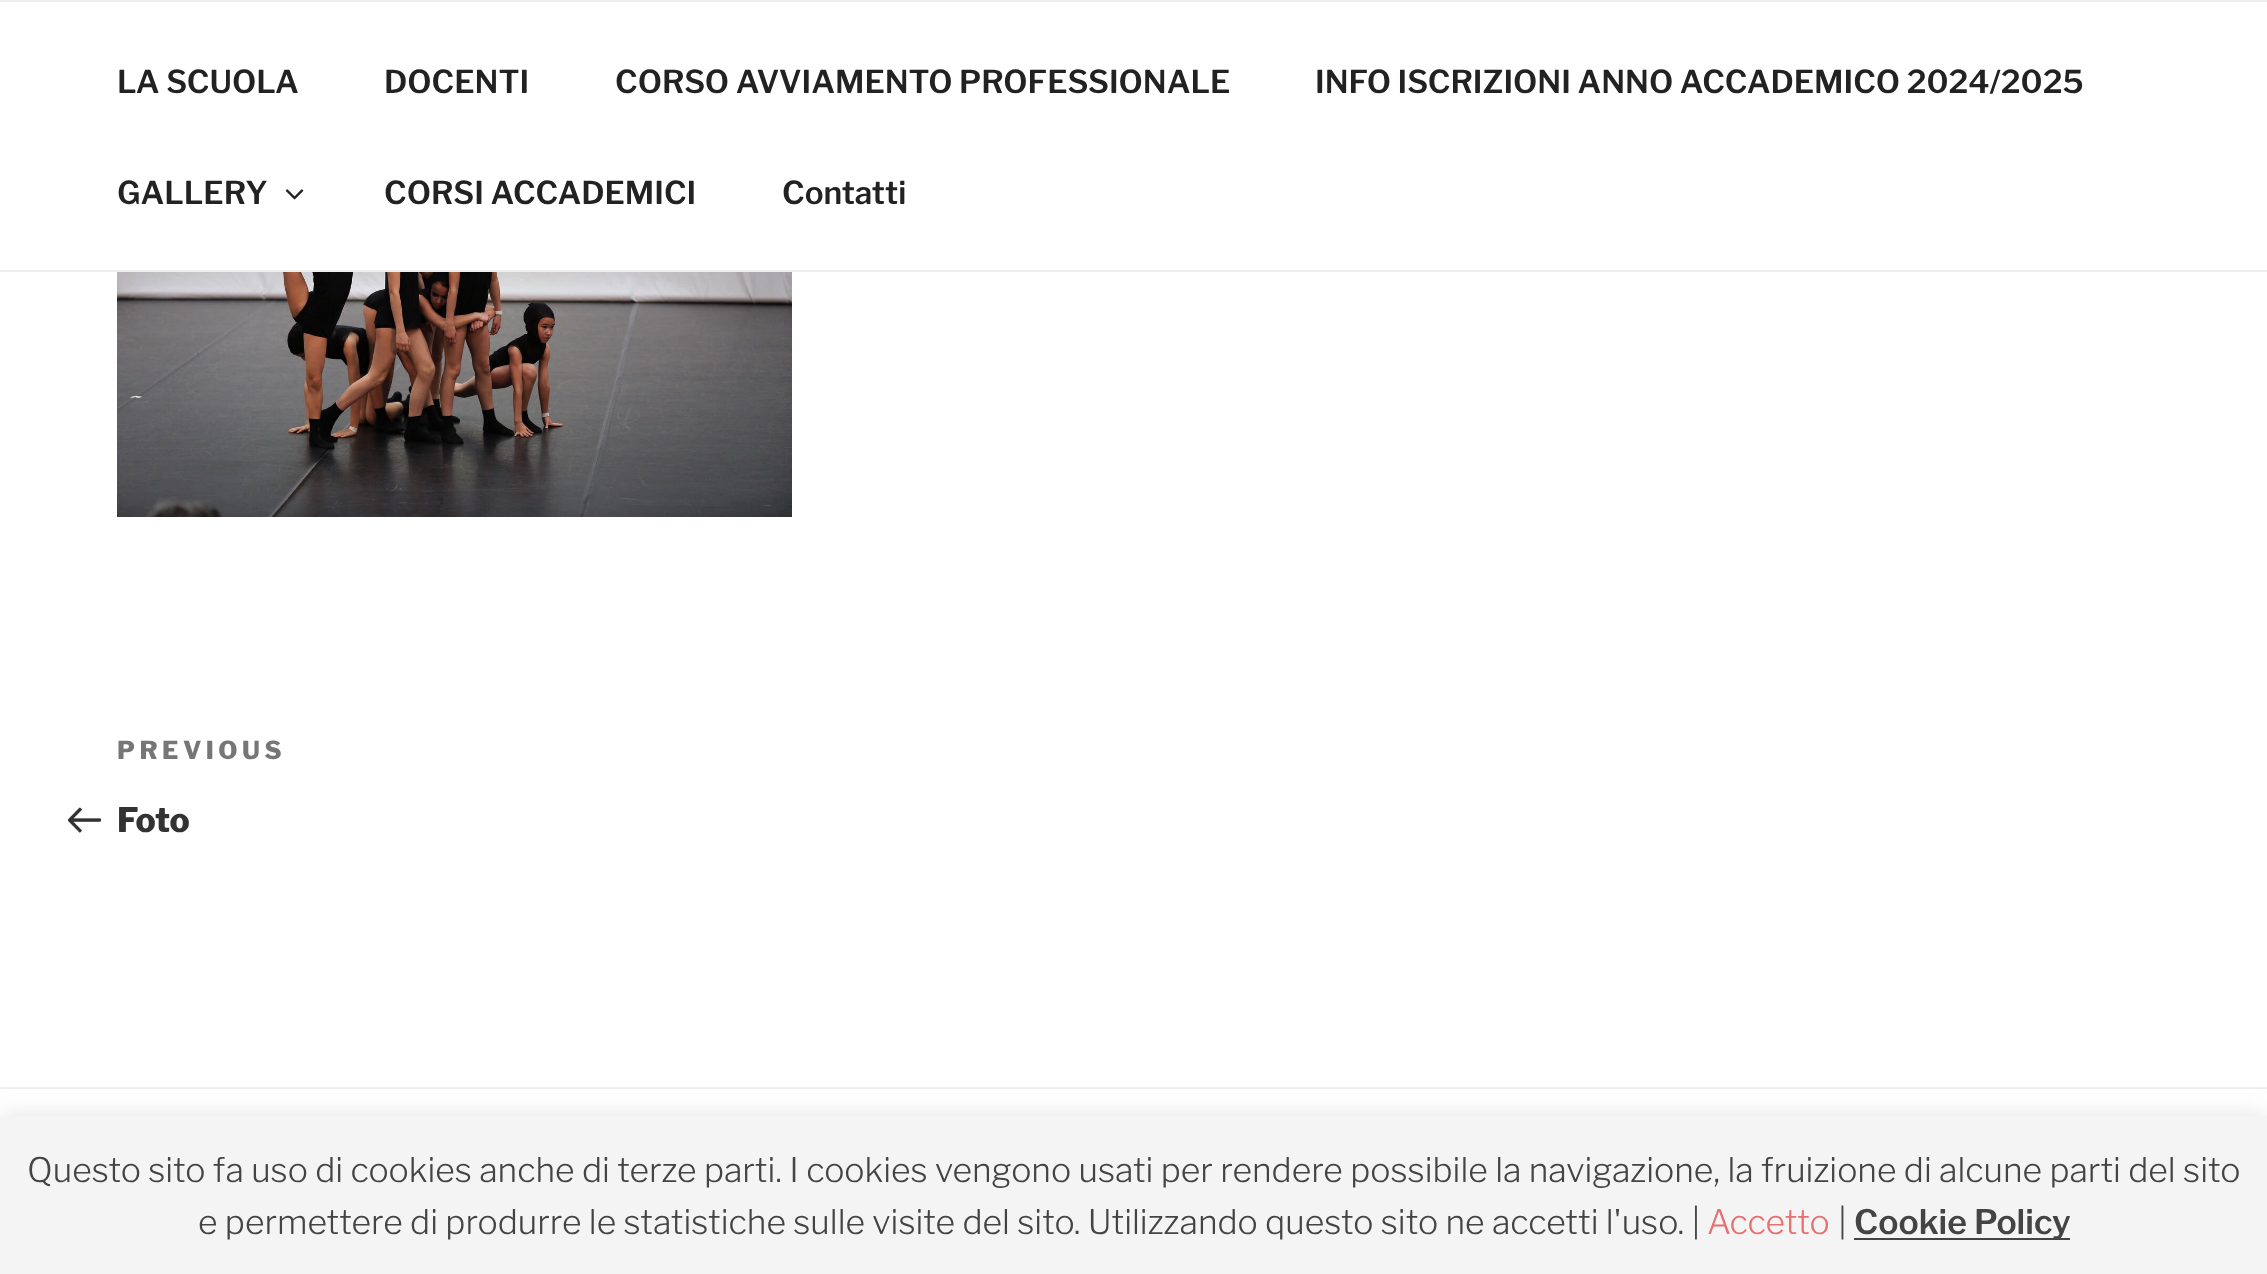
<svg xmlns="http://www.w3.org/2000/svg" width="2267" height="1274" viewBox="0 0 2267 1274">
  <style>
    .t1 { font: 600 31.5px Libre Franklin; fill: #222; }
    .t2 { font: 800 24.75px Libre Franklin; letter-spacing: 4.5px; fill: #767676; }
    .t3 { font: 800 33.75px Libre Franklin; fill: #333; }
    .t4 { font: 300 33.75px Libre Franklin; fill: #444; }
    .t5 { font: 300 33.75px Libre Franklin; fill: #e57070; }
    .t6 { font: 600 33.75px Libre Franklin; fill: #444; }
  </style>
  <rect width="100%" height="100%" fill="#fff"/>
  <rect x="0" y="0" width="2267" height="2" fill="#eee"/>
  <rect x="0" y="270" width="2267" height="2" fill="#eee"/>
  <text x="117" y="93" class="t1">LA SCUOLA</text>
  <text x="384" y="93" class="t1">DOCENTI</text>
  <text x="615" y="93" class="t1">CORSO AVVIAMENTO PROFESSIONALE</text>
  <text x="1315" y="93" class="t1">INFO ISCRIZIONI ANNO ACCADEMICO 2024/2025</text>
  <text x="117" y="204" class="t1">GALLERY</text>
  <image x="285" y="189" width="19" height="11" href="images/1.png"/>
  <text x="384" y="204" class="t1">CORSI ACCADEMICI</text>
  <text x="782" y="204" class="t1">Contatti</text>
  <image x="117" y="272" width="675" height="245" href="images/2.png"/>
  <text x="117" y="759" class="t2">PREVIOUS</text>
  <image x="68" y="807" width="33" height="26" href="images/3.png"/>
  <text x="117" y="832" class="t3">Foto</text>
  <rect x="0" y="1087" width="2267" height="2" fill="#eee"/>
  <rect x="0" y="1114" width="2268" height="160" fill="#acabab4d" filter="blur(11px)"/>
  <rect x="0" y="1116" width="2267" height="158" fill="#f4f4f4"/>
  <text x="27" y="1182" class="t4">Questo sito fa uso di cookies anche di terze parti. I cookies vengono usati per rendere possibile la navigazione, la fruizione di alcune parti del sito</text>
  <text x="198" y="1234" class="t4">e permettere di produrre le statistiche sulle visite del sito. Utilizzando questo sito ne accetti l'uso. |</text>
  <text x="1707" y="1234" class="t5">Accetto</text>
  <text x="1838" y="1234" class="t4">|</text>
  <rect x="1854" y="1238" width="216" height="2" fill="#444"/>
  <text x="1854" y="1234" class="t6">Cookie Policy</text>
</svg>
